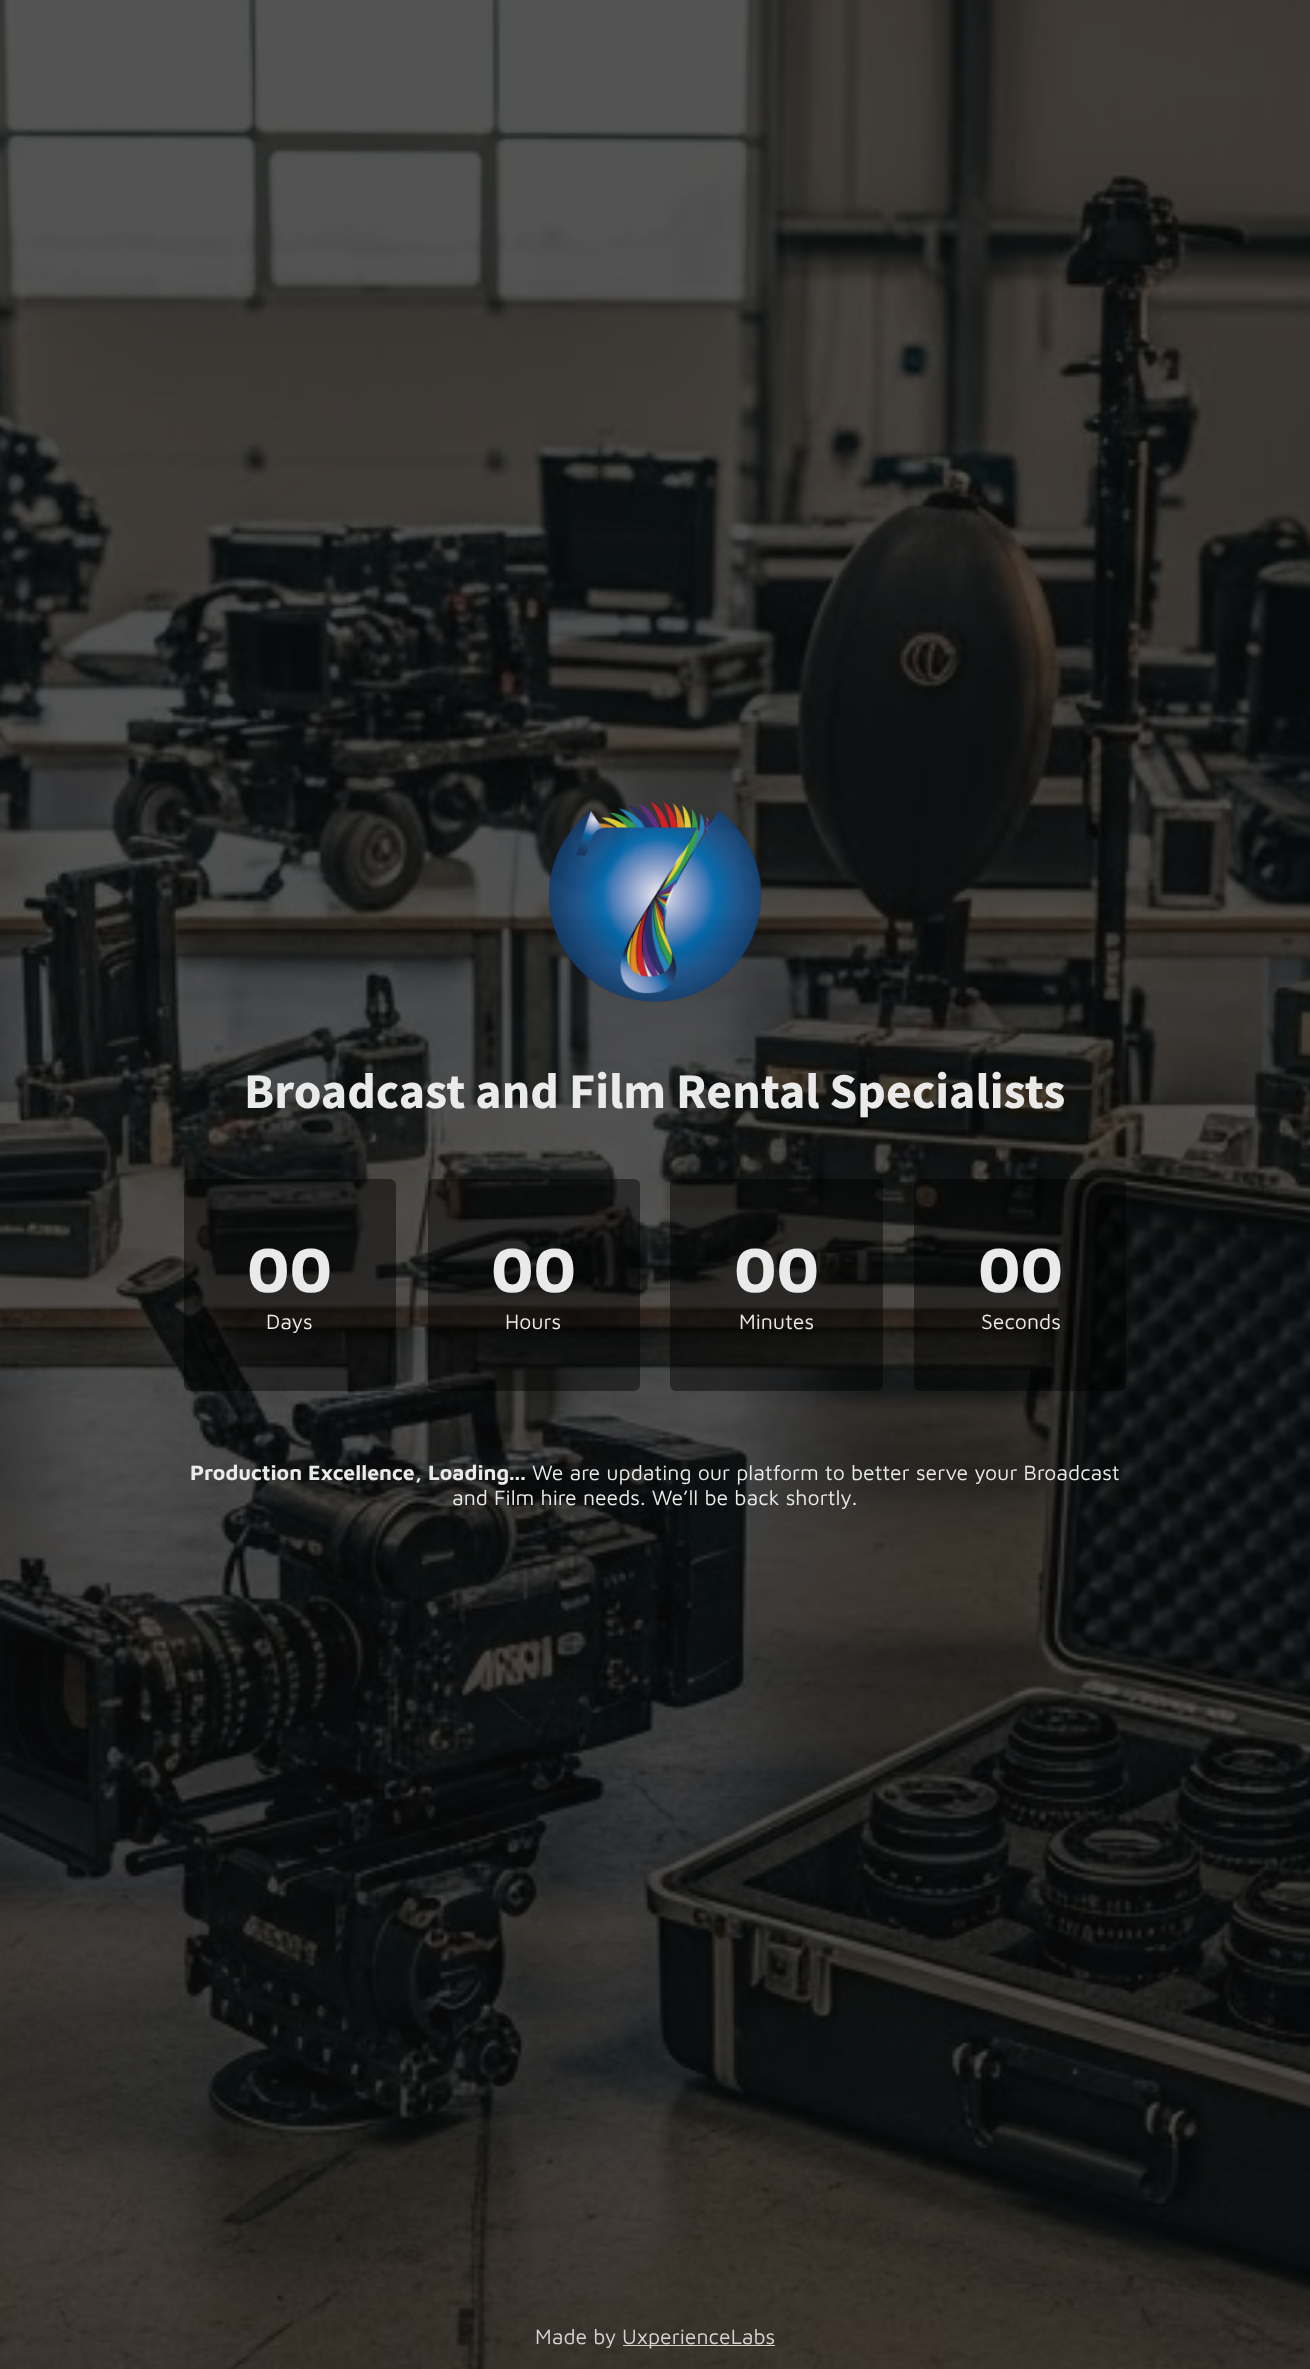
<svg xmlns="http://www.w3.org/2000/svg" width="1310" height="2369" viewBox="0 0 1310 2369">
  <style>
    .t1 { font: bold 50px Source Sans Pro; fill: #e9eae9; }
    .t2 { font: bold 64px Maven Pro; fill: #e9eae9; }
    .t3 { font: 21.25px Maven Pro; fill: #e9eae9; }
    .t4 { font: bold 21.25px Maven Pro; fill: #e9eae9; }
    .t5 { font: 21.25px Maven Pro; fill: #d5d4d3; }
  </style>
  <rect width="100%" height="100%" fill="#fff"/>
  <image x="0" y="0" width="1310" height="2369" href="images/1.png"/>
  <image x="548" y="801" width="214" height="201" href="images/2.png"/>
  <text x="244" y="1108" class="t1">Broadcast and Film Rental Specialists</text>
  <rect x="184" y="1179" width="212" height="212" rx="6" fill="#00000073"/>
  <text x="247" y="1292" class="t2">00</text>
  <text x="266" y="1329" class="t3">Days</text>
  <rect x="428" y="1179" width="212" height="212" rx="6" fill="#00000073"/>
  <text x="491" y="1292" class="t2">00</text>
  <text x="505" y="1329" class="t3">Hours</text>
  <rect x="670" y="1179" width="213" height="212" rx="6" fill="#00000073"/>
  <text x="734" y="1292" class="t2">00</text>
  <text x="739" y="1329" class="t3">Minutes</text>
  <rect x="914" y="1179" width="212" height="212" rx="6" fill="#00000073"/>
  <text x="978" y="1292" class="t2">00</text>
  <text x="981" y="1329" class="t3">Seconds</text>
  <text x="190" y="1480" class="t4">Production Excellence, Loading...</text>
  <text x="532" y="1480" class="t3">We are updating our platform to better serve your Broadcast</text>
  <text x="452" y="1505" class="t3">and Film hire needs. We’ll be back shortly.</text>
  <text x="535" y="2344" class="t5">Made by</text>
  <rect x="623" y="2345" width="152" height="1" fill="#e6e6e6e6"/>
  <text x="622" y="2344" class="t5">UxperienceLabs</text>
</svg>
